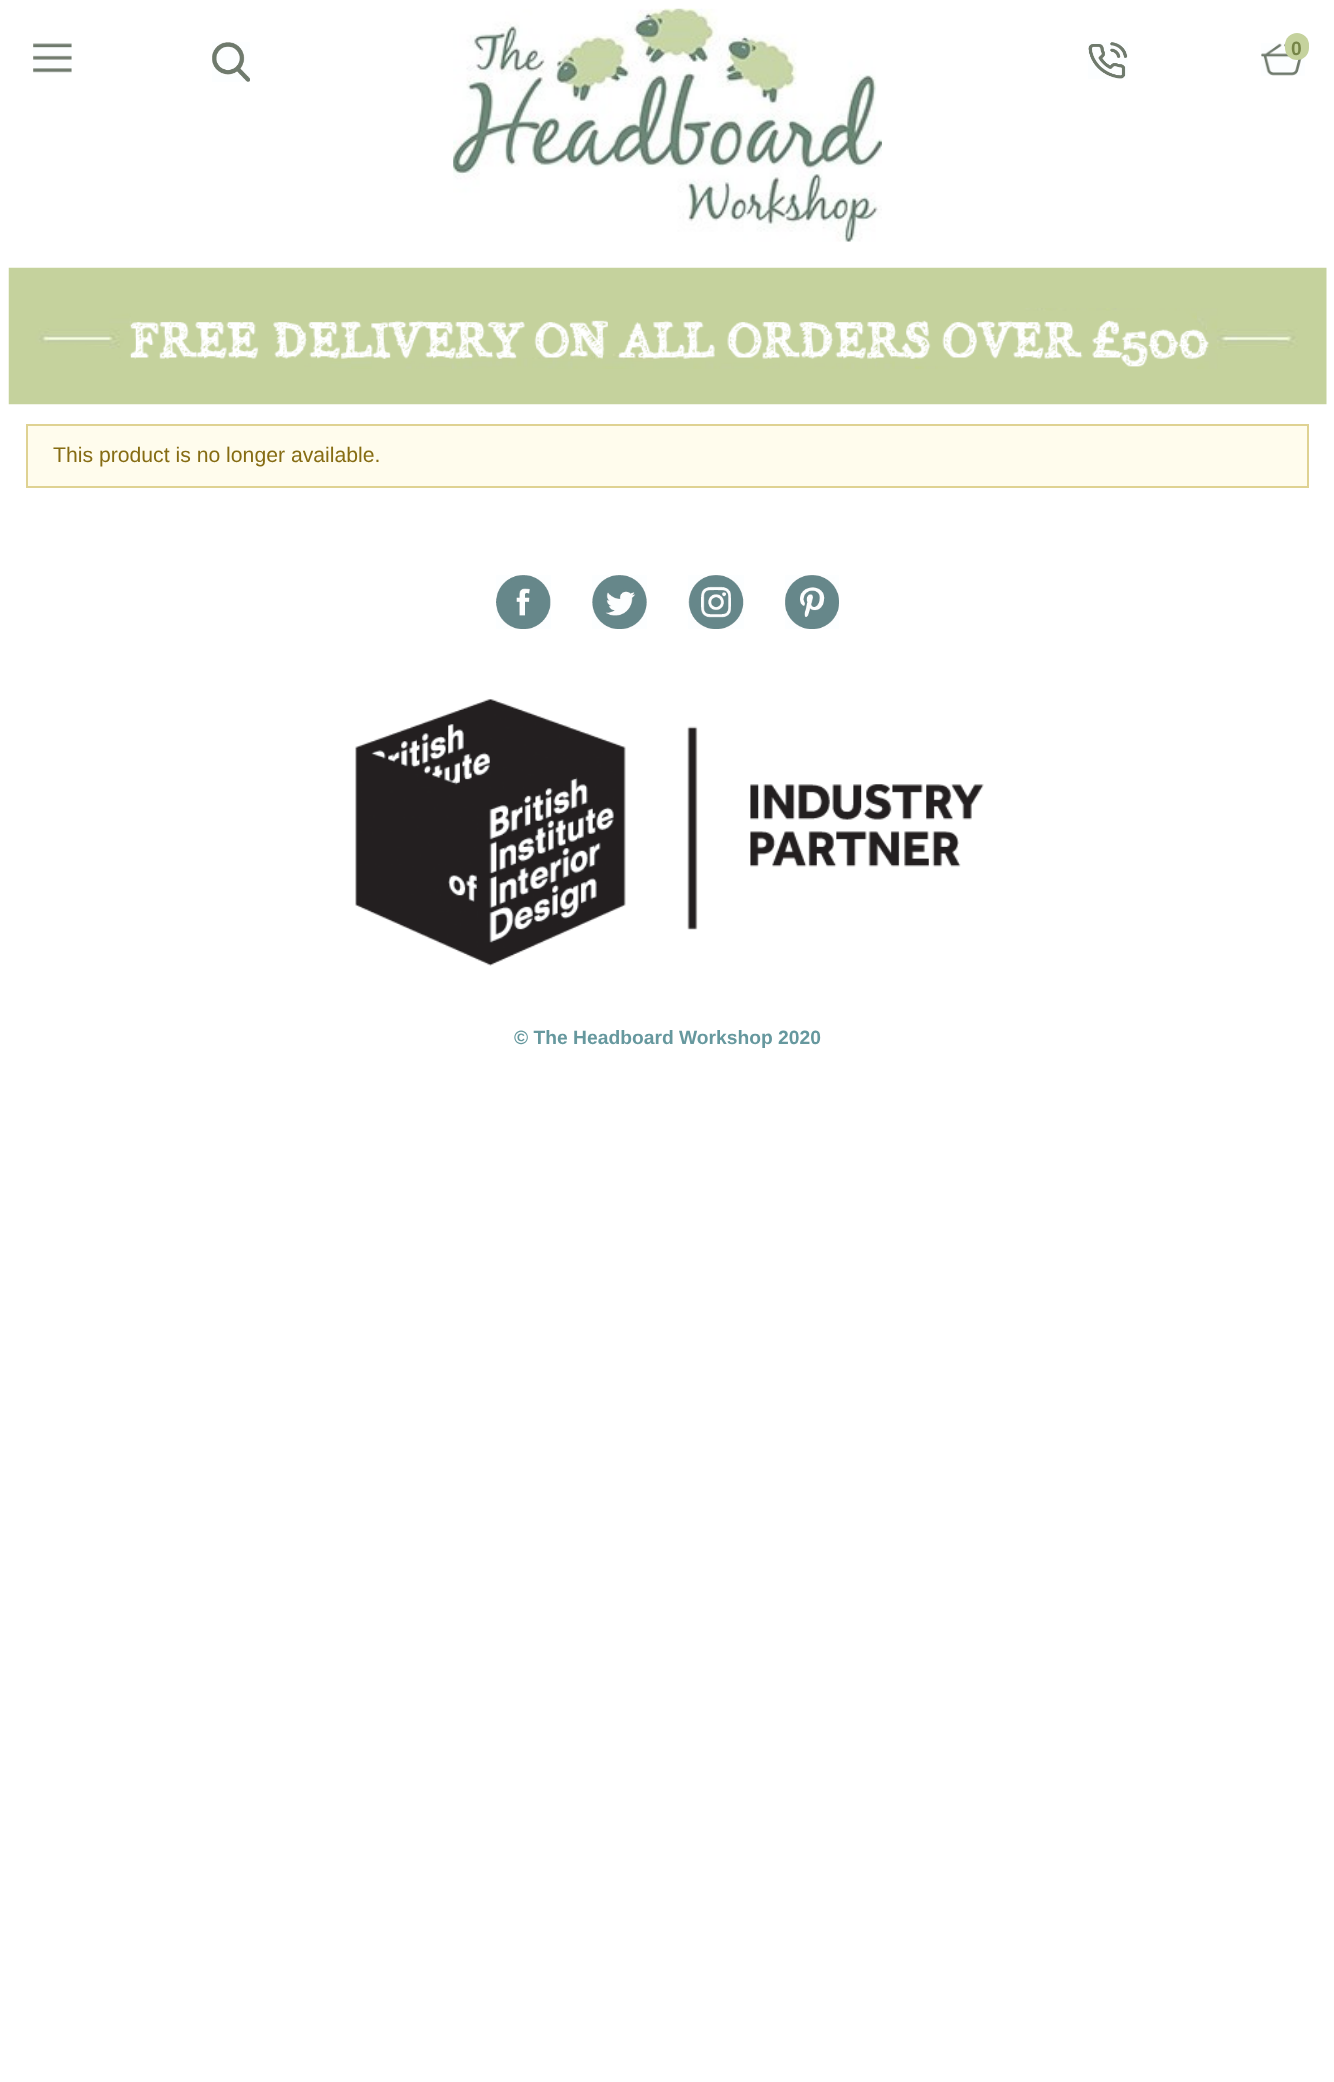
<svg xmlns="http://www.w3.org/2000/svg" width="1334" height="2082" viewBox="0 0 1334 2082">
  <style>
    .t1 { font: bold 19.25px Liberation Sans; fill: #768548; }
    .t2 { font: 21.2px Liberation Sans; fill: #866c13; }
    .t3 { font: bold 19.25px Liberation Sans; fill: #66989e; }
  </style>
  <rect width="100%" height="100%" fill="#fff"/>
  <image x="33" y="43" width="39" height="30" href="images/1.png"/>
  <image x="212" y="42" width="38" height="40" href="images/2.png"/>
  <image x="453" y="8" width="429" height="234" href="images/3.png"/>
  <image x="1088" y="42" width="40" height="37" href="images/4.png"/>
  <image x="1261" y="43" width="44" height="33" href="images/5.png"/>
  <rect x="1285" y="33" width="24" height="27" rx="12" fill="#c5d29d"/>
  <text x="1291" y="55" class="t1">0</text>
  <image x="8" y="267" width="1319" height="138" href="images/6.png"/>
  <rect x="27" y="425" width="1281" height="62" fill="#fffced" stroke="#dfd292" stroke-width="2"/>
  <text x="53" y="462" class="t2">This product is no longer available.</text>
  <image x="496" y="575" width="55" height="54" href="images/7.png"/>
  <image x="592" y="575" width="55" height="54" href="images/8.png"/>
  <image x="688" y="575" width="56" height="54" href="images/9.png"/>
  <image x="785" y="575" width="54" height="54" href="images/10.png"/>
  <image x="355" y="699" width="629" height="267" href="images/11.png"/>
  <text x="514" y="1044" class="t3">© The Headboard Workshop 2020</text>
</svg>
